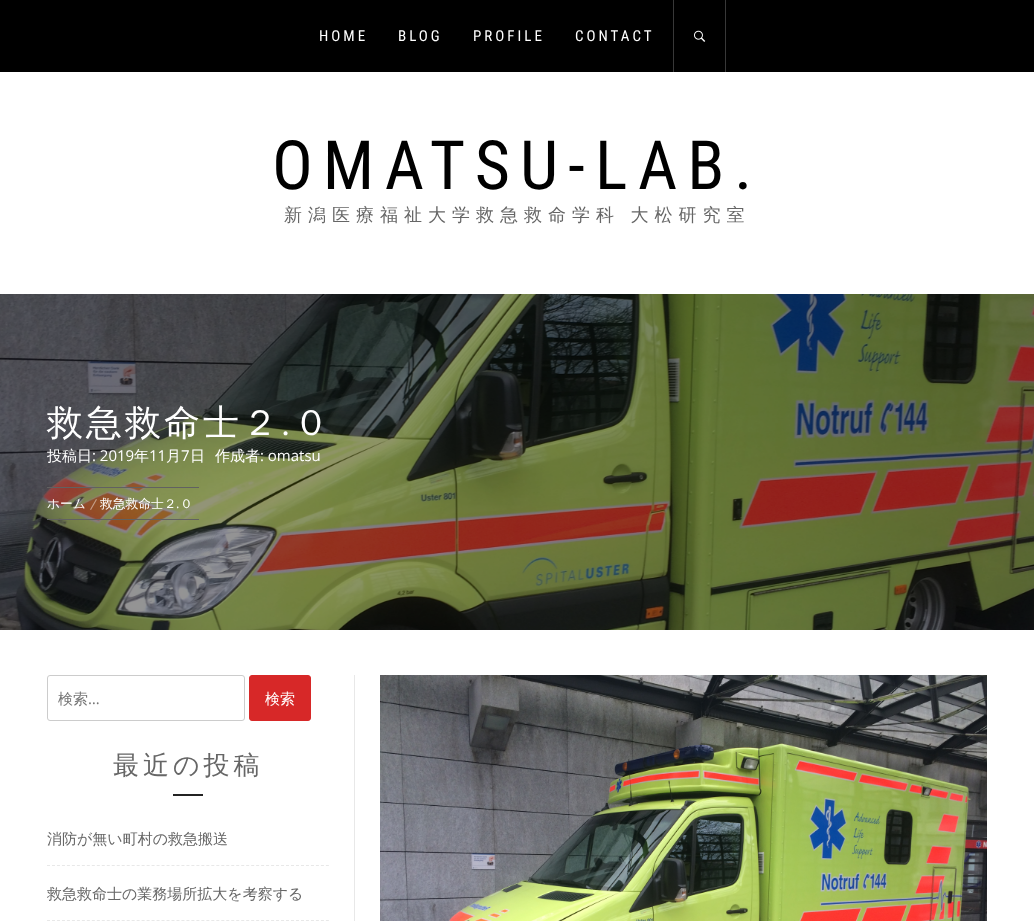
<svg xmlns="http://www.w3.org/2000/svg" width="1034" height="921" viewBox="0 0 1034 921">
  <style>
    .t1 { font: 15px Roboto Condensed; letter-spacing: 3px; fill: #fff; }
    .t2 { font: 68px Roboto Condensed; letter-spacing: 10px; fill: #000; }
    .t3 { font: 500 18px WenQuanYi Zen Hei; letter-spacing: 6px; fill: #666; }
    .t4 { font: 500 36px WenQuanYi Zen Hei; letter-spacing: 3px; fill: #fff; }
    .t5 { font: 36px Roboto Condensed; letter-spacing: 3px; fill: #fff; }
    .t6 { font: 500 15px WenQuanYi Zen Hei; fill: #fff; }
    .t7 { font: 15px Open Sans; fill: #fff; }
    .t8 { font: 500 12.75px WenQuanYi Zen Hei; fill: #fff; }
    .t9 { font: 12.75px Open Sans; fill: #fff; }
    .t10 { font: 500 15px WenQuanYi Zen Hei; fill: #757575; }
    .t11 { font: 15px Open Sans; fill: #757575; }
    .t12 { font: 500 26px WenQuanYi Zen Hei; letter-spacing: 4px; fill: #666; }
    .t13 { font: 500 15px WenQuanYi Zen Hei; fill: #666; }
  </style>
  <rect width="100%" height="100%" fill="#fff"/>
  <rect x="0" y="0" width="1034" height="72" fill="#000"/>
  <text x="319" y="41" class="t1">HOME</text>
  <text x="398" y="41" class="t1">BLOG</text>
  <text x="473" y="41" class="t1">PROFILE</text>
  <text x="575" y="41" class="t1">CONTACT</text>
  <rect x="725" y="0" width="1" height="72" fill="#383838"/>
  <rect x="673" y="0" width="1" height="72" fill="#383838"/>
  <image x="694" y="30" width="12" height="12" href="images/1.png"/>
  <text x="272" y="189" class="t2">OMATSU-LAB.</text>
  <text x="284" y="221" word-spacing="-1" class="t3">新潟医療福祉大学救急救命学科 大松研究室</text>
  <image x="0" y="294" width="1034" height="336" href="images/2.png"/>
  <text x="47" y="435" class="t4">救急救命士２</text>
  <text x="281" y="435" class="t5">.</text>
  <text x="293" y="435" class="t4">０</text>
  <text x="47" y="461" class="t6">投稿日</text>
  <text x="92" y="461" class="t7">: 2019</text>
  <text x="134" y="461" class="t6">年</text>
  <text x="149" y="461" class="t7">11</text>
  <text x="166" y="461" class="t6">月</text>
  <text x="181" y="461" class="t7">7</text>
  <text x="190" y="461" class="t6">日</text>
  <text x="215" y="461" class="t6">作成者</text>
  <text x="260" y="461" class="t7">: omatsu</text>
  <rect x="47" y="487" width="152" height="1" fill="#616161"/>
  <rect x="47" y="519" width="152" height="1" fill="#616161"/>
  <text x="47" y="508" class="t8">ホーム</text>
  <path d="M96 499L97 499.5L91 510L90 509.5Z" fill="#ffffff73"/>
  <text x="100" y="508" class="t8">救急救命士２</text>
  <text x="176" y="508" class="t9">.</text>
  <text x="180" y="508" class="t8">０</text>
  <rect x="354" y="675" width="1" height="246" fill="#e8e8e8"/>
  <rect x="47.5" y="675.5" width="197" height="45" rx="2.5" fill="none" stroke="#ccc"/>
  <text x="58" y="704" class="t10">検索</text>
  <text x="88" y="704" class="t11">…</text>
  <rect x="249.5" y="675.5" width="61" height="45" rx="2.5" fill="#d72828" stroke="#d72828"/>
  <text x="265" y="704" class="t6">検索</text>
  <text x="113" y="774" class="t12">最近の投稿</text>
  <rect x="173" y="794" width="30" height="2" fill="#232323"/>
  <path d="M47 865.5H329" fill="none" stroke="#e8e8e8" stroke-dasharray="3 1.98"/>
  <text x="47" y="844" class="t13">消防が無い町村の救急搬送</text>
  <path d="M47 920.5H329" fill="none" stroke="#e8e8e8" stroke-dasharray="3 1.98"/>
  <text x="47" y="899" class="t13">救急救命士の業務場所拡大を考察する</text>
  <image x="380" y="675" width="607" height="246" href="images/3.png"/>
</svg>
